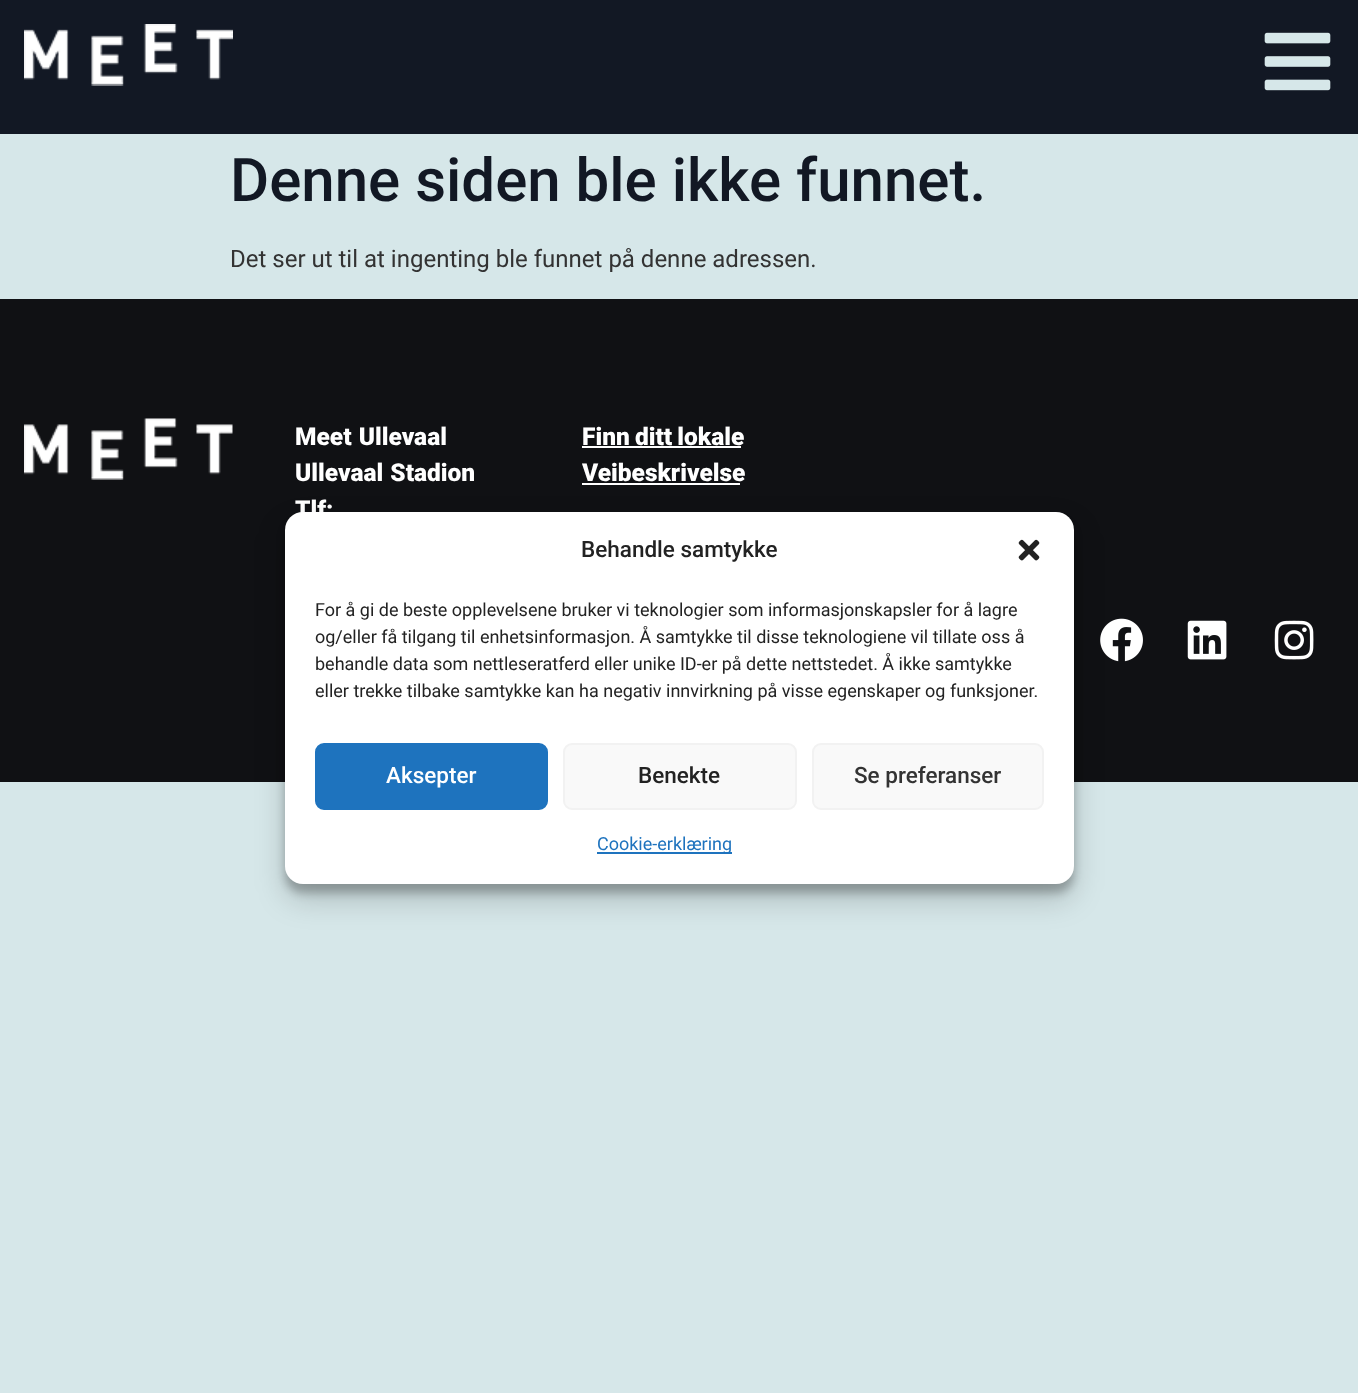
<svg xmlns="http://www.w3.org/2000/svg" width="1358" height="1393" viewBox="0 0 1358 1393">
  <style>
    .t1 { font: 500 60px Roboto; fill: #121824; }
    .t2 { font: 24px Roboto; fill: #333; }
    .t3 { font: 900 24.5px Roboto; fill: #fff; }
    .t4 { font: 500 22.5px Roboto; fill: #222; }
    .t5 { font: 18px Roboto; fill: #222; }
    .t6 { font: 500 22.5px Roboto; fill: #fff; }
    .t7 { font: 500 22.5px Roboto; fill: #333; }
    .t8 { font: 18px Roboto; fill: #1e73be; }
  </style>
  <rect width="100%" height="100%" fill="#d6e7e9"/>
  <rect x="0" y="0" width="1358" height="134" fill="#121824"/>
  <image x="24" y="24" width="209" height="62" href="images/1.png"/>
  <image x="1264" y="32" width="67" height="59" href="images/2.png"/>
  <text x="230" y="201" class="t1">Denne siden ble ikke funnet.</text>
  <text x="230" y="267" class="t2">Det ser ut til at ingenting ble funnet på denne adressen.</text>
  <rect x="0" y="299" width="1358" height="483" fill="#101114"/>
  <image x="24" y="418" width="209" height="62" href="images/3.png"/>
  <text x="295" y="445" word-spacing="1" class="t3">Meet Ullevaal</text>
  <text x="295" y="481" word-spacing="1" class="t3">Ullevaal Stadion</text>
  <text x="295" y="518" class="t3">Tlf:</text>
  <text x="582" y="445" word-spacing="-1" class="t3">Finn ditt lokale</text>
  <rect x="582" y="446" width="159" height="2" fill="#fff"/>
  <text x="582" y="481" class="t3">Veibeskrivelse</text>
  <rect x="582" y="483" width="158" height="2" fill="#fff"/>
  <image x="1100" y="618" width="43" height="44" href="images/4.png"/>
  <image x="1187" y="620" width="40" height="40" href="images/5.png"/>
  <image x="1274" y="620" width="40" height="40" href="images/6.png"/>
  <rect x="285" y="521" width="789" height="372" rx="18" fill="#0000003b" filter="blur(4.5px)"/>
  <rect x="285" y="527" width="789" height="372" rx="18" fill="#00000030" filter="blur(15px)"/>
  <rect x="285" y="512" width="789" height="372" rx="18" fill="#fff"/>
  <text x="581" y="557" class="t4">Behandle samtykke</text>
  <image x="1018" y="539" width="22" height="22" href="images/7.png"/>
  <text x="315" y="616" class="t5">For å gi de beste opplevelsene bruker vi teknologier som informasjonskapsler for å lagre</text>
  <text x="315" y="643" class="t5">og/eller få tilgang til enhetsinformasjon. Å samtykke til disse teknologiene vil tillate oss å</text>
  <text x="315" y="670" class="t5">behandle data som nettleseratferd eller unike ID-er på dette nettstedet. Å ikke samtykke</text>
  <text x="315" y="697" class="t5">eller trekke tilbake samtykke kan ha negativ innvirkning på visse egenskaper og funksjoner.</text>
  <rect x="316" y="744" width="231" height="65" rx="8" fill="#1e73be" stroke="#1e73be" stroke-width="2"/>
  <text x="386" y="783" class="t6">Aksepter</text>
  <rect x="564" y="744" width="232" height="65" rx="8" fill="#f9f9f9" stroke="#f2f2f2" stroke-width="2"/>
  <text x="638" y="783" class="t4">Benekte</text>
  <rect x="813" y="744" width="230" height="65" rx="8" fill="#f9f9f9" stroke="#f2f2f2" stroke-width="2"/>
  <text x="854" y="783" class="t7">Se preferanser</text>
  <rect x="597" y="852" width="135" height="2" fill="#1e73be"/>
  <text x="597" y="850" class="t8">Cookie-erklæring</text>
</svg>
